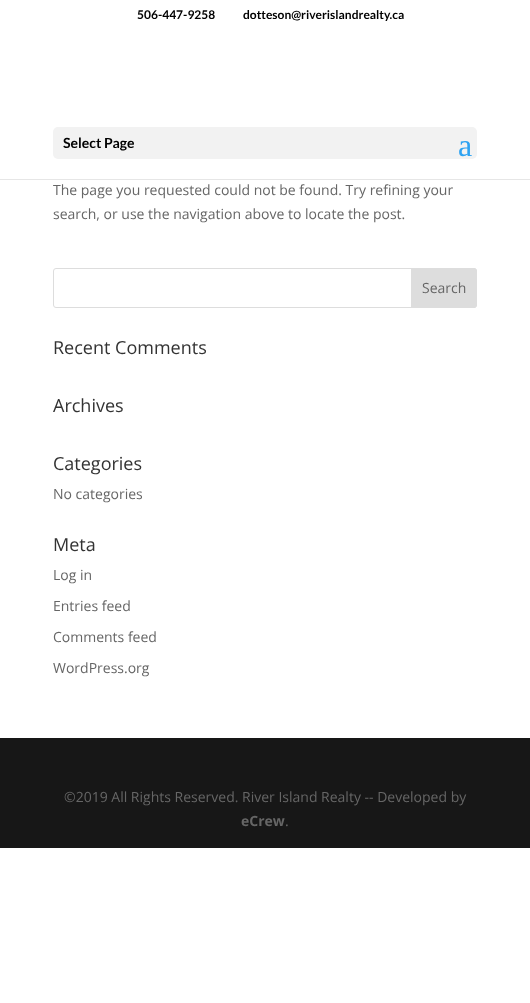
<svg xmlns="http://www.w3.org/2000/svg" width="530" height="1003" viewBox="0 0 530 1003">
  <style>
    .t1 { font: bold 12px Lato; fill: #000; }
    .t2 { font: bold 14px Lato; fill: #000; }
    .t3 { font: 32px Liberation Serif; fill: #2ea3f2; }
    .t4 { font: 14px Open Sans; fill: #666; }
    .t5 { font: 18px Open Sans; fill: #333; }
    .t6 { font: bold 14px Open Sans; fill: #666; }
  </style>
  <rect width="100%" height="100%" fill="#fff"/>
  <text x="137" y="19" class="t1">506-447-9258</text>
  <text x="243" y="19" class="t1">dotteson@riverislandrealty.ca</text>
  <rect x="0" y="179" width="530" height="1" fill="#e6e6e6"/>
  <rect x="53" y="127" width="424" height="32" rx="5" fill="#f2f2f2"/>
  <text x="63" y="148" class="t2">Select Page</text>
  <text x="458" y="156" class="t3">a</text>
  <text x="53" y="195" class="t4">The page you requested could not be found. Try refining your</text>
  <text x="53" y="219" class="t4">search, or use the navigation above to locate the post.</text>
  <rect x="53.5" y="268.5" width="423" height="39" rx="2.5" fill="none" stroke="#ddd"/>
  <path d="M411.5 268.5H474C475.5 268.5 476.5 269.5 476.5 271V305C476.5 306.5 475.5 307.5 474 307.5H411.5Z" fill="#ddd" stroke="#ddd"/>
  <text x="422" y="293" class="t4">Search</text>
  <text x="53" y="354" class="t5">Recent Comments</text>
  <text x="53" y="412" class="t5">Archives</text>
  <text x="53" y="470" class="t5">Categories</text>
  <text x="53" y="499" class="t4">No categories</text>
  <text x="53" y="551" class="t5">Meta</text>
  <text x="53" y="580" class="t4">Log in</text>
  <text x="53" y="611" class="t4">Entries feed</text>
  <text x="53" y="642" class="t4">Comments feed</text>
  <text x="53" y="673" class="t4">WordPress.org</text>
  <rect x="0" y="738" width="530" height="110" fill="#171717"/>
  <text x="64" y="802" class="t4">©2019 All Rights Reserved. River Island Realty -- Developed by</text>
  <text x="241" y="826" class="t6">eCrew</text>
  <text x="285" y="826" class="t4">.</text>
</svg>
